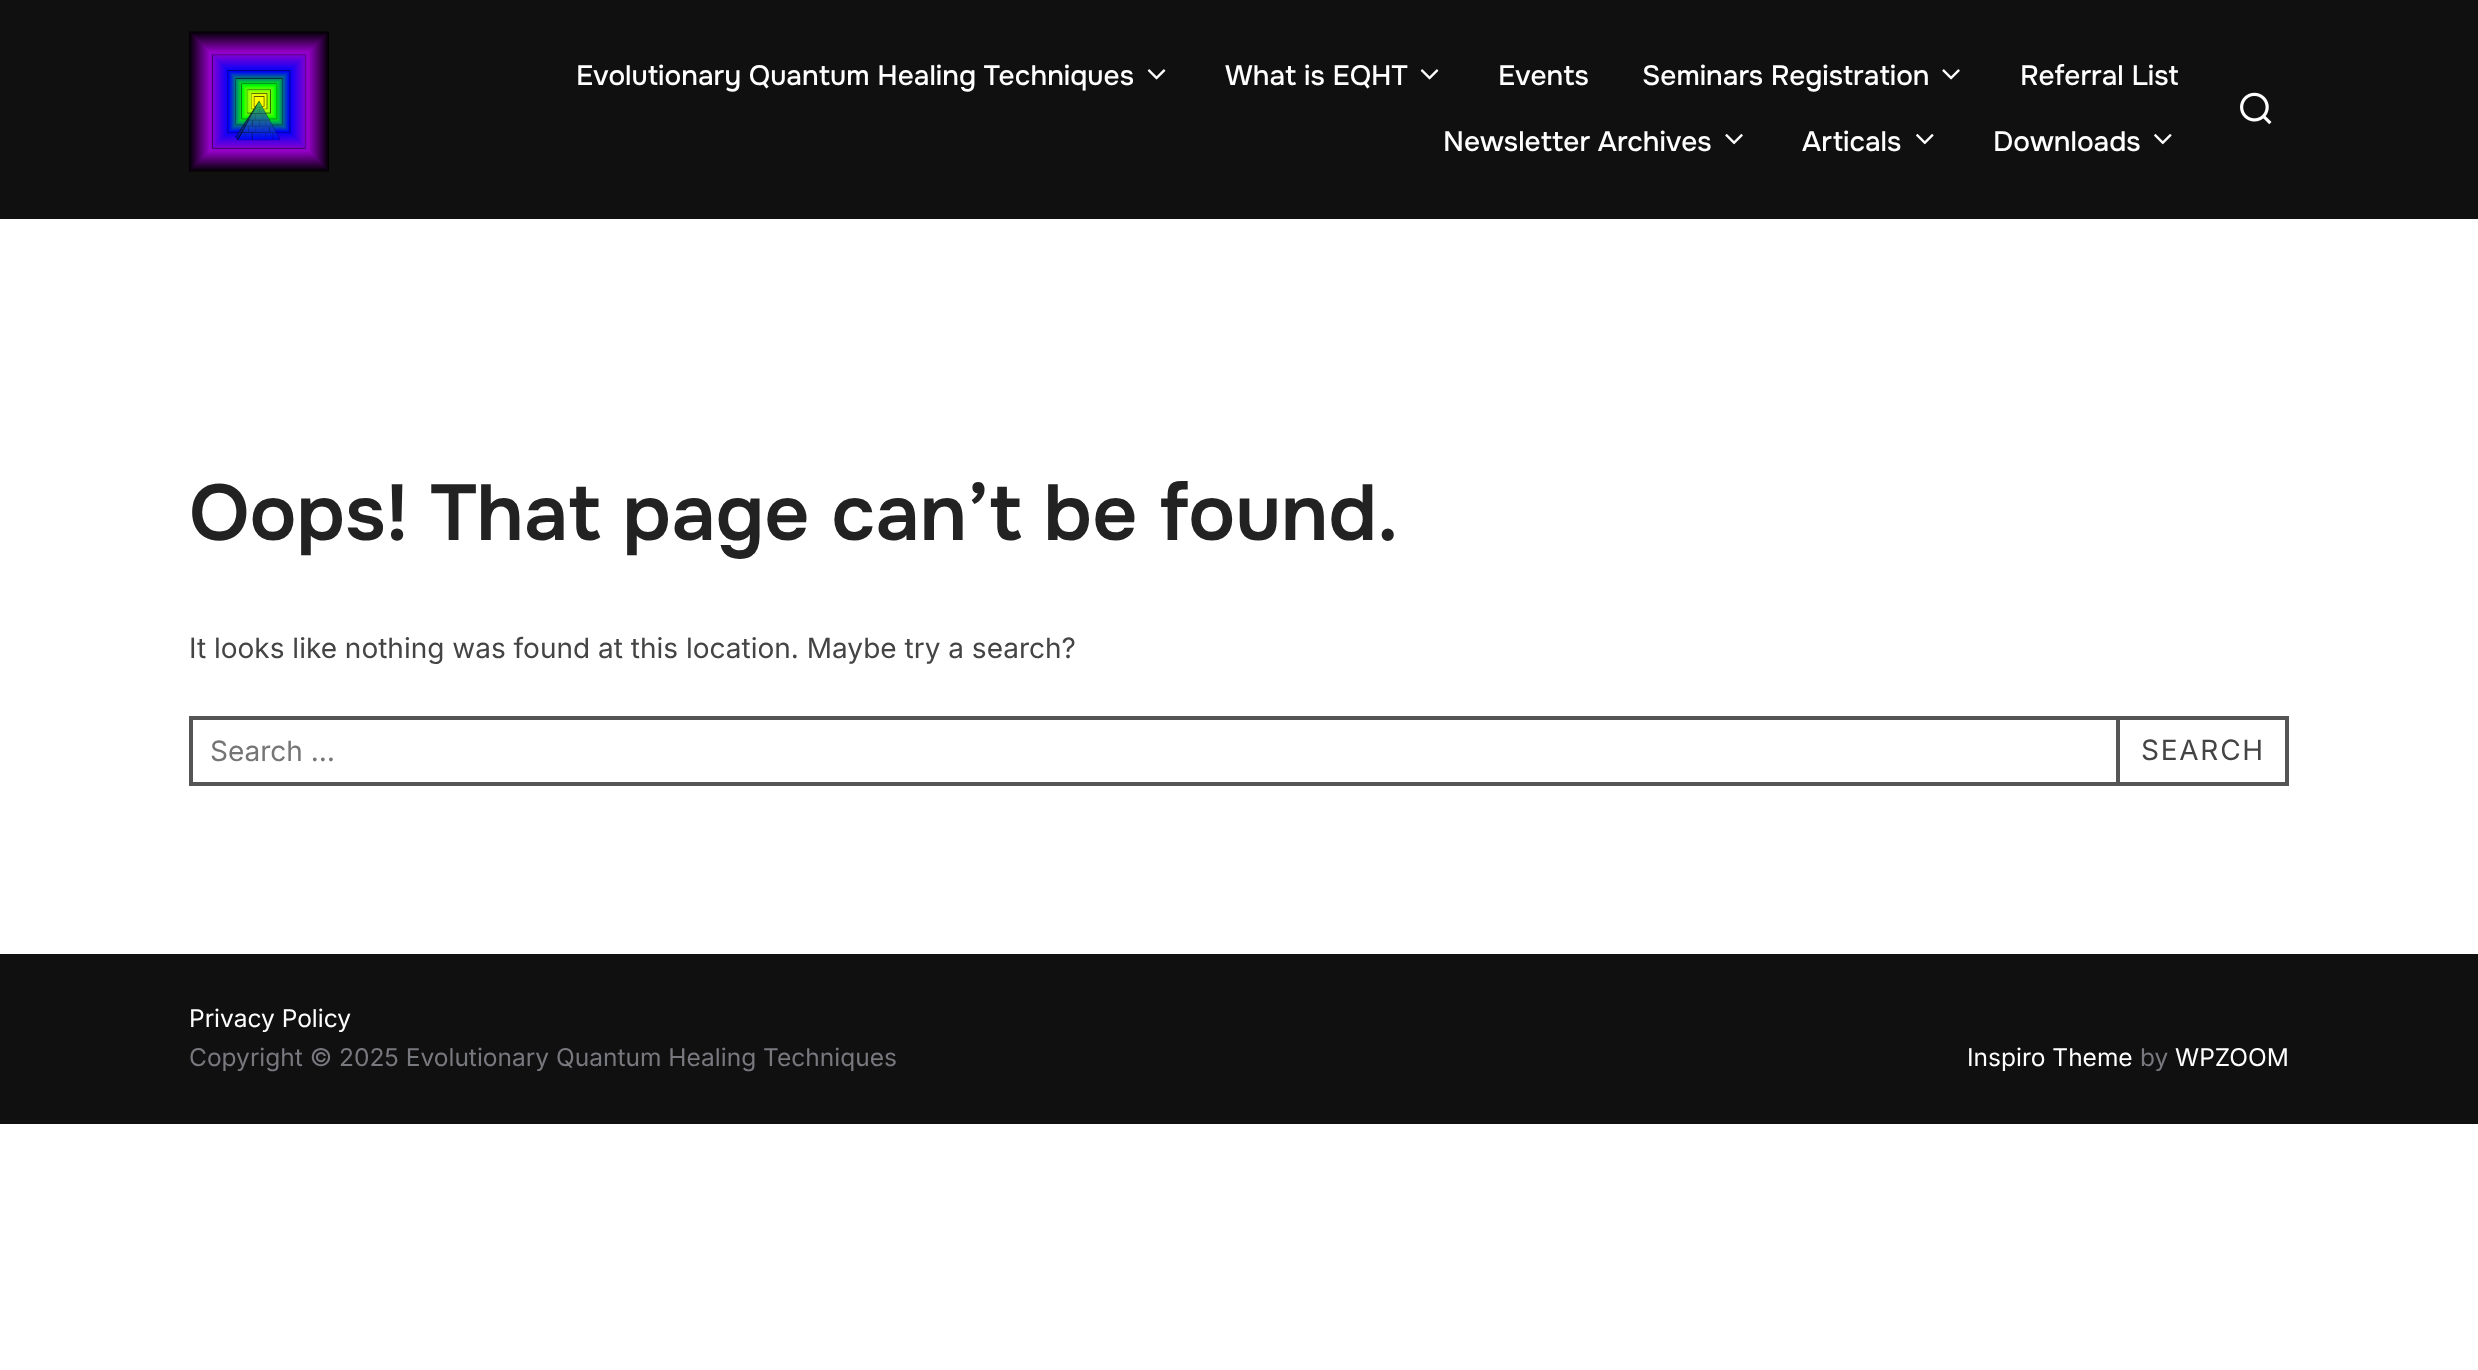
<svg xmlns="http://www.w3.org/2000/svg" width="2478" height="1370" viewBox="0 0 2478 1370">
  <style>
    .t1 { font: 500 28px Onest; fill: #fff; }
    .t2 { font: 600 78.75px Onest; fill: #222; }
    .t3 { font: 28px Inter; fill: #444; }
    .t4 { font: 28px Inter; fill: #757575; }
    .t5 { font: 28px Inter; letter-spacing: 1.75px; fill: #444; }
    .t6 { font: 24.5px Inter; fill: #fff; }
    .t7 { font: 24.5px Inter; fill: #78787f; }
  </style>
  <rect width="100%" height="100%" fill="#fff"/>
  <rect x="0" y="0" width="2478" height="219" fill="#101010"/>
  <image x="189" y="31" width="140" height="141" href="images/1.png"/>
  <text x="576" y="85" class="t1">Evolutionary Quantum Healing Techniques</text>
  <image x="1147" y="69" width="19" height="11" href="images/2.png"/>
  <text x="1225" y="85" class="t1">What is EQHT</text>
  <image x="1420" y="69" width="19" height="11" href="images/2.png"/>
  <text x="1498" y="85" class="t1">Events</text>
  <text x="1642" y="85" class="t1">Seminars Registration</text>
  <image x="1942" y="69" width="18" height="11" href="images/3.png"/>
  <text x="2020" y="85" class="t1">Referral List</text>
  <text x="1443" y="151" class="t1">Newsletter Archives</text>
  <image x="1725" y="134" width="18" height="11" href="images/4.png"/>
  <text x="1802" y="151" class="t1">Articals</text>
  <image x="1916" y="134" width="18" height="11" href="images/5.png"/>
  <text x="1993" y="151" class="t1">Downloads</text>
  <image x="2154" y="134" width="18" height="11" href="images/5.png"/>
  <image x="2240" y="92" width="32" height="33" href="images/6.png"/>
  <text x="189" y="540" class="t2">Oops! That page can’t be found.</text>
  <text x="189" y="658" class="t3">It looks like nothing was found at this location. Maybe try a search?</text>
  <rect x="191" y="718" width="2096" height="66" fill="none" stroke="#565555" stroke-width="4"/>
  <text x="210" y="761" class="t4">Search …</text>
  <rect x="2118" y="718" width="169" height="66" fill="none" stroke="#565555" stroke-width="4"/>
  <text x="2141" y="760" class="t5">SEARCH</text>
  <rect x="0" y="954" width="2478" height="170" fill="#101010"/>
  <text x="189" y="1027" class="t6">Privacy Policy</text>
  <text x="189" y="1066" class="t7">Copyright © 2025 Evolutionary Quantum Healing Techniques</text>
  <text x="1967" y="1066" class="t6">Inspiro Theme</text>
  <text x="2140" y="1066" class="t7">by</text>
  <text x="2175" y="1066" class="t6">WPZOOM</text>
</svg>
